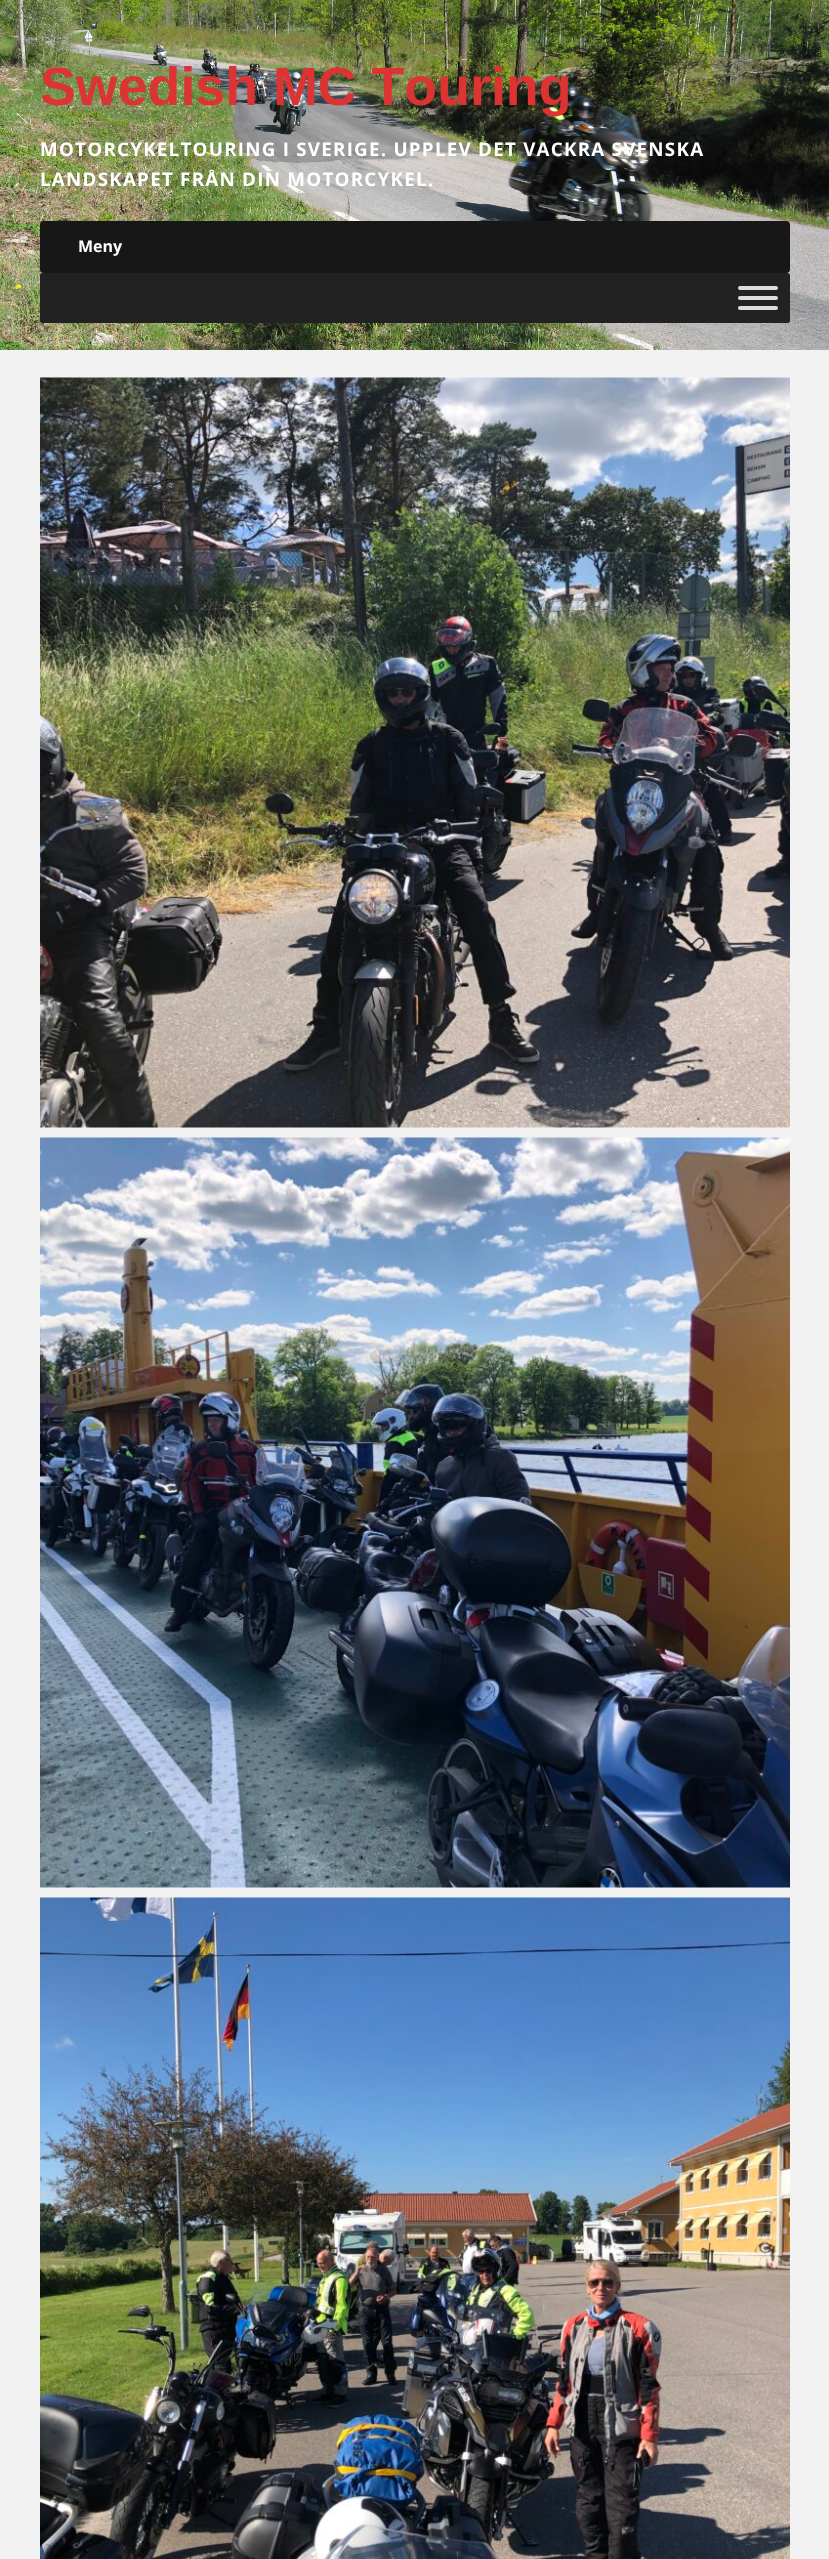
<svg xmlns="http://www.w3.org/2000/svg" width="829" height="2559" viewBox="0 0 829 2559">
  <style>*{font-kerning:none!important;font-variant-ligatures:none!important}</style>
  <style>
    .t1 { font: bold 53.75px Liberation Sans; fill: #d33; }
    .t2 { font: bold 18.75px Open Sans; letter-spacing: 1.25px; fill: #fff; }
    .t3 { font: bold 16px Open Sans; fill: #fff; }
  </style>
  <rect width="100%" height="100%" fill="#fff"/>
  <image x="0" y="0" width="829" height="350" href="images/1.png"/>
  <text x="40" y="105" class="t1">Swedish MC Touring</text>
  <text x="40" y="156" class="t2">MOTORCYKELTOURING I SVERIGE. UPPLEV DET VACKRA SVENSKA</text>
  <text x="40" y="186" class="t2">LANDSKAPET FRÅN DIN MOTORCYKEL.</text>
  <rect x="40" y="221" width="750" height="52" rx="4" fill="#171717"/>
  <text x="78" y="252" class="t3">Meny</text>
  <rect x="40" y="273" width="750" height="50" rx="2.5" fill="#222"/>
  <rect x="738" y="286" width="40" height="4" rx="2" fill="#ddd"/>
  <rect x="738" y="296" width="40" height="4" rx="2" fill="#ddd"/>
  <rect x="738" y="306" width="40" height="4" rx="2" fill="#ddd"/>
  <rect x="0" y="350" width="829" height="2209" fill="#f2f2f2"/>
  <image x="40" y="377" width="750" height="751" href="images/2.png"/>
  <image x="40" y="1137" width="750" height="751" href="images/3.png"/>
  <image x="40" y="1897" width="750" height="662" href="images/4.png"/>
</svg>
